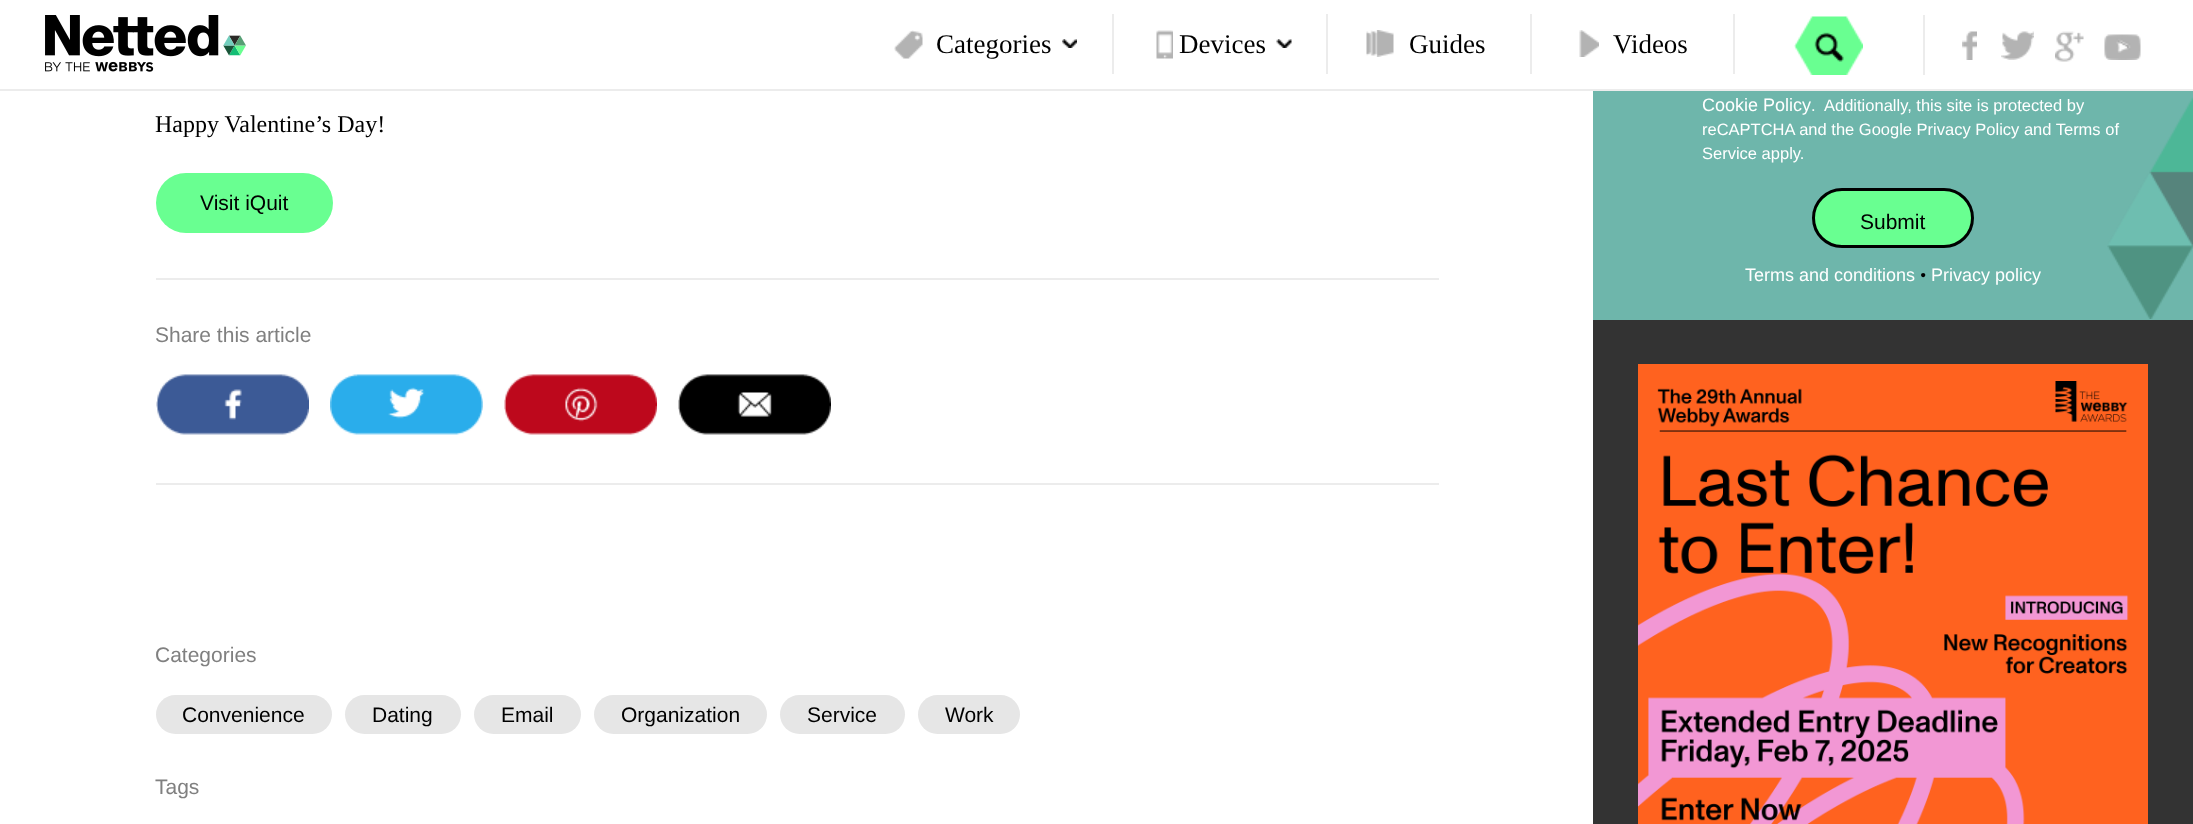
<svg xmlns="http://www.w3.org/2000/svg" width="2193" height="824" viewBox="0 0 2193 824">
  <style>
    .t1 { font: 27px Liberation Serif; fill: #000; }
    .t2 { font: 24px Liberation Serif; fill: #000; }
    .t3 { font: 21px Liberation Sans; fill: #000; }
    .t4 { font: 21px Liberation Sans; fill: #808080; }
    .t5 { font: 18px Liberation Sans; fill: #fff; }
    .t6 { font: 16.5px Liberation Sans; fill: #fff; }
    .t7 { font: 18px Liberation Serif; fill: #000; }
  </style>
  <rect width="100%" height="100%" fill="#fff"/>
  <rect x="0" y="89" width="2193" height="2" fill="#ececec"/>
  <image x="45" y="15" width="201" height="57" href="images/1.png"/>
  <image x="894" y="30" width="183" height="29" href="images/2.png"/>
  <rect x="1112" y="14" width="2" height="60" fill="#ececec"/>
  <text x="936" y="53" class="t1">Categories</text>
  <image x="1156" y="30" width="136" height="29" href="images/3.png"/>
  <rect x="1326" y="14" width="2" height="60" fill="#ececec"/>
  <text x="1179" y="53" class="t1">Devices</text>
  <image x="1366" y="30" width="28" height="27" href="images/4.png"/>
  <rect x="1530" y="14" width="2" height="60" fill="#ececec"/>
  <text x="1409" y="53" class="t1">Guides</text>
  <image x="1579" y="30" width="20" height="27" href="images/5.png"/>
  <rect x="1733" y="14" width="2" height="60" fill="#ececec"/>
  <text x="1613" y="53" class="t1">Videos</text>
  <rect x="1923" y="15" width="2" height="60" fill="#ececec"/>
  <image x="1794" y="16" width="69" height="59" href="images/6.png"/>
  <image x="1962" y="31" width="15" height="29" href="images/7.png"/>
  <image x="2001" y="31" width="33" height="29" href="images/8.png"/>
  <image x="2055" y="31" width="29" height="31" href="images/9.png"/>
  <image x="2104" y="34" width="37" height="26" href="images/10.png"/>
  <text x="155" y="132" class="t2">Happy Valentine’s Day!</text>
  <rect x="156" y="173" width="177" height="60" rx="30" fill="#69ff91"/>
  <text x="200" y="210" class="t3">Visit iQuit</text>
  <rect x="156" y="278" width="1283" height="2" fill="#ececec"/>
  <rect x="156" y="483" width="1283" height="2" fill="#ececec"/>
  <text x="155" y="342" class="t4">Share this article</text>
  <image x="156" y="374" width="153" height="61" href="images/11.png"/>
  <image x="330" y="374" width="153" height="61" href="images/12.png"/>
  <image x="504" y="374" width="153" height="61" href="images/13.png"/>
  <image x="678" y="374" width="153" height="61" href="images/14.png"/>
  <text x="155" y="662" class="t4">Categories</text>
  <rect x="156" y="695" width="176" height="39" rx="19.5" fill="#e6e6e6"/>
  <text x="182" y="722" class="t3">Convenience</text>
  <rect x="345" y="695" width="116" height="39" rx="19.5" fill="#e6e6e6"/>
  <text x="372" y="722" class="t3">Dating</text>
  <rect x="474" y="695" width="107" height="39" rx="19.5" fill="#e6e6e6"/>
  <text x="501" y="722" class="t3">Email</text>
  <rect x="594" y="695" width="173" height="39" rx="19.5" fill="#e6e6e6"/>
  <text x="621" y="722" class="t3">Organization</text>
  <rect x="780" y="695" width="125" height="39" rx="19.5" fill="#e6e6e6"/>
  <text x="807" y="722" class="t3">Service</text>
  <rect x="918" y="695" width="102" height="39" rx="19.5" fill="#e6e6e6"/>
  <text x="945" y="722" class="t3">Work</text>
  <text x="155" y="794" class="t4">Tags</text>
  <rect x="1593" y="91" width="600" height="229" fill="#6eb6ab"/>
  <image x="2107" y="97" width="86" height="222" href="images/15.png"/>
  <text x="1702" y="111" class="t5">Cookie Policy</text>
  <text x="1811" y="111" class="t6">.</text>
  <text x="1824" y="111" class="t6">Additionally, this site is protected by</text>
  <text x="1702" y="135" class="t6">reCAPTCHA and the Google Privacy Policy and Terms of</text>
  <text x="1702" y="159" class="t6">Service apply.</text>
  <rect x="1813.5" y="189.5" width="159" height="57" rx="28.5" fill="#69ff91" stroke="#000" stroke-width="3"/>
  <text x="1860" y="229" class="t3">Submit</text>
  <text x="1745" y="281" class="t5">Terms and conditions</text>
  <text x="1920" y="281" class="t7">•</text>
  <text x="1931" y="281" class="t5">Privacy policy</text>
  <rect x="1593" y="320" width="600" height="504" fill="#333"/>
  <image x="1638" y="364" width="510" height="460" href="images/16.png"/>
</svg>
